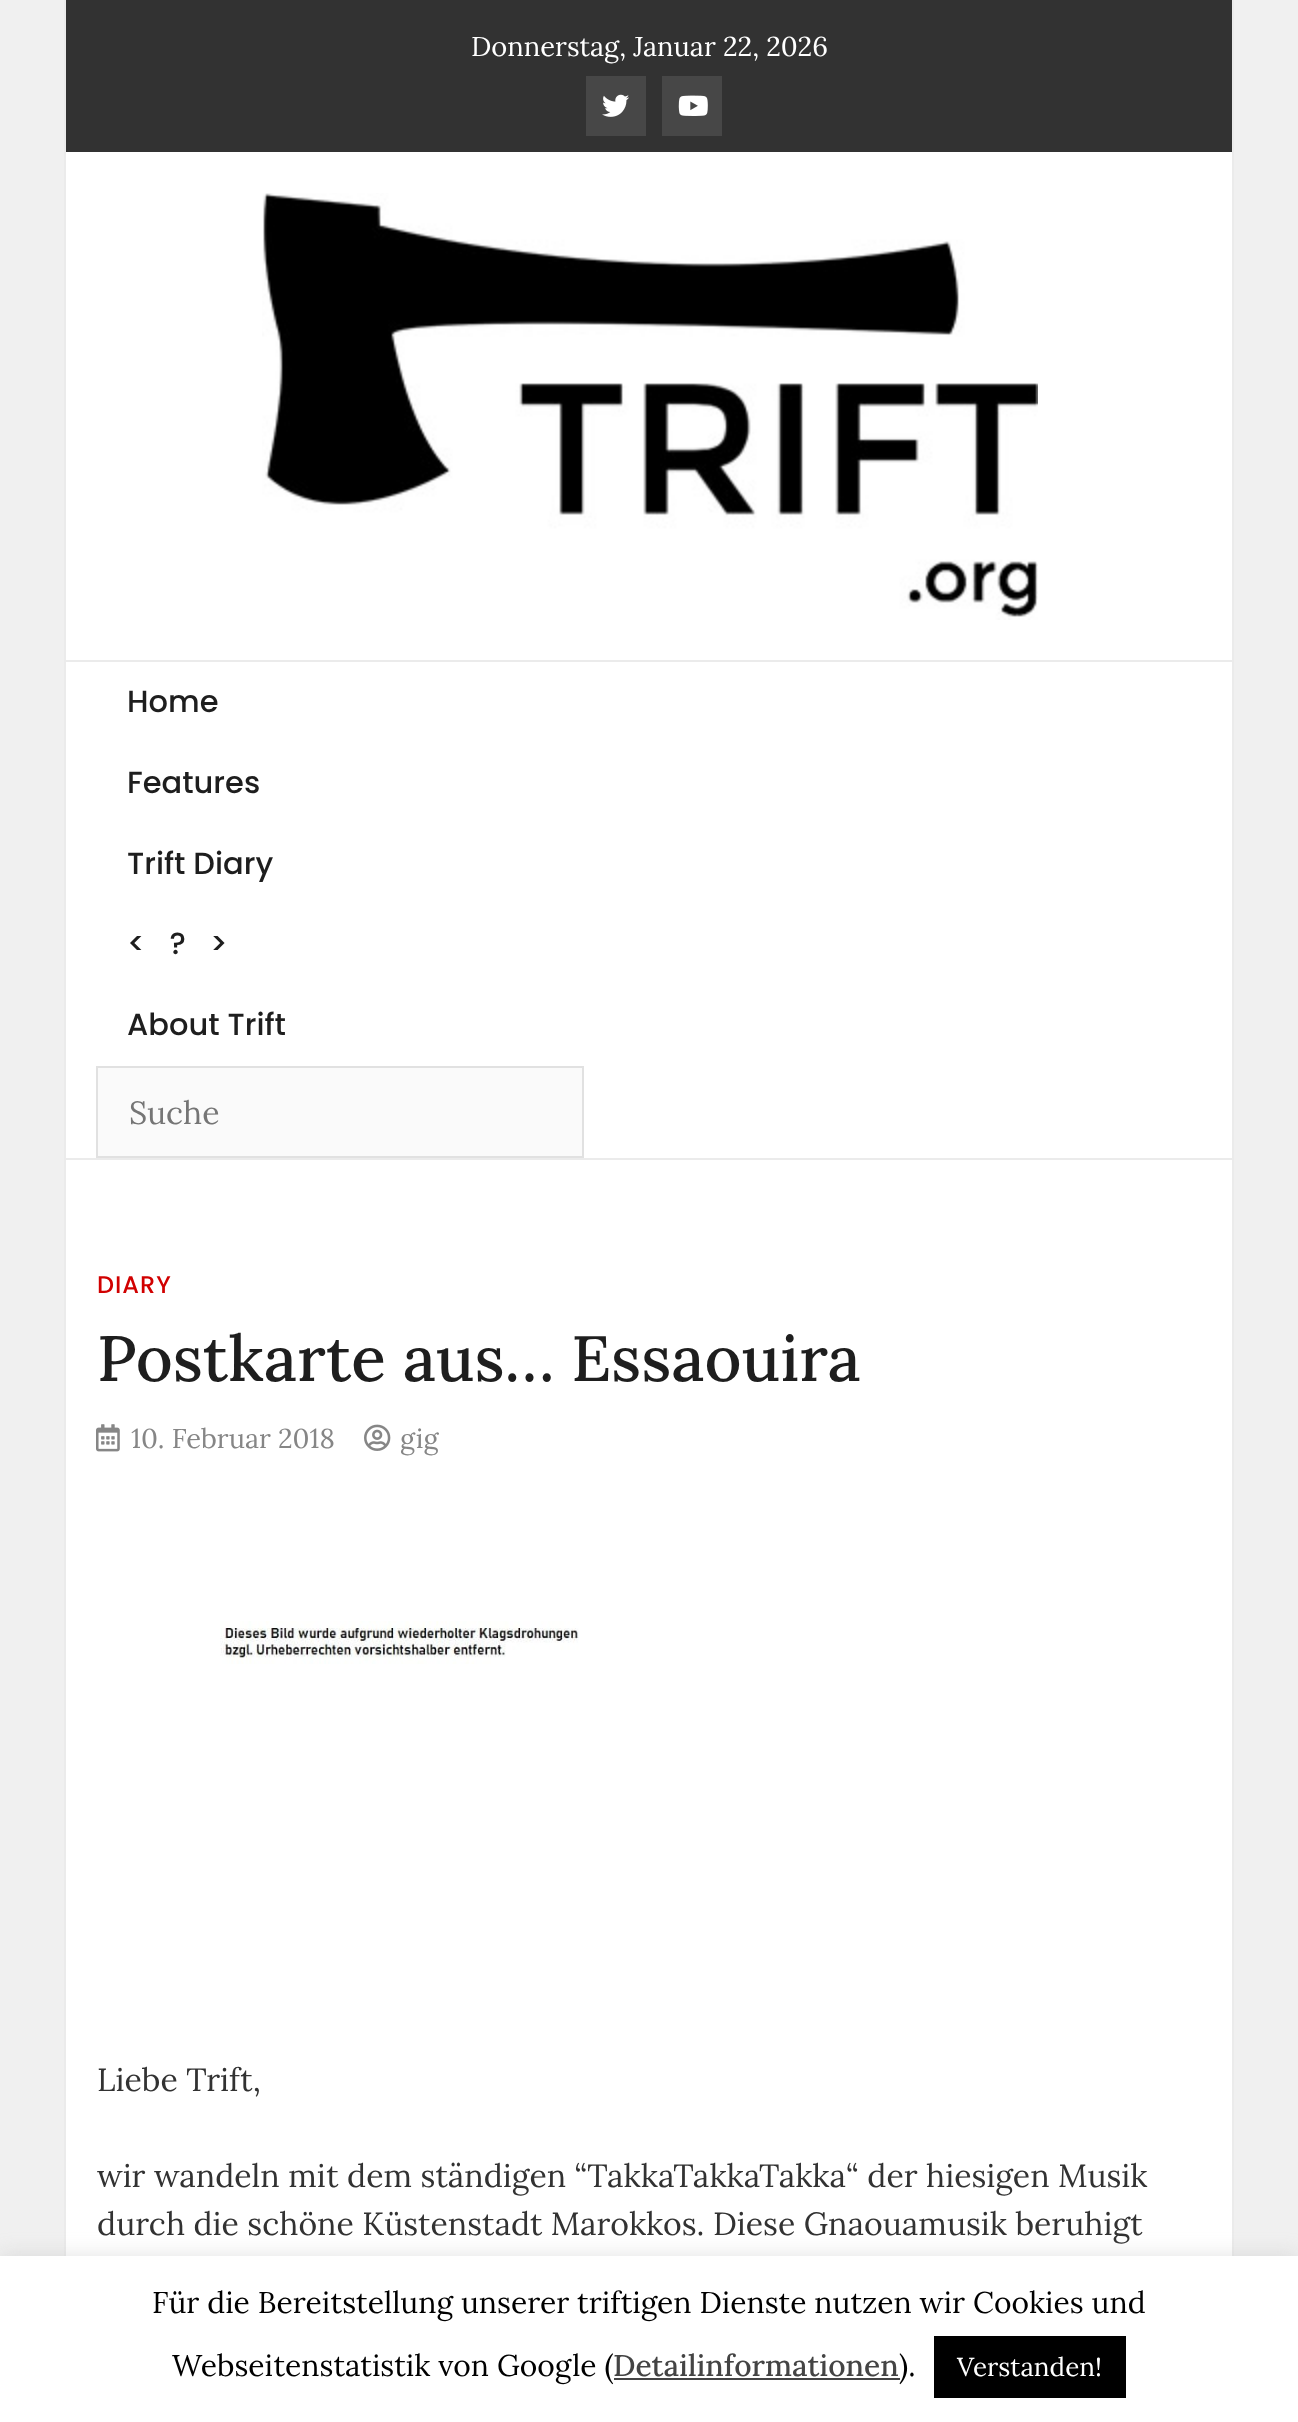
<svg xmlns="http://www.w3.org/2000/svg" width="1298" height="2422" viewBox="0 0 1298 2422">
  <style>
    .t1 { font: 27.25px Lora; fill: #fff; }
    .t2 { font: 500 30.5px Poppins; fill: #1e1e1e; }
    .t3 { font: 32px Lora; fill: #757575; }
    .t4 { font: 500 24px Poppins; letter-spacing: 1px; fill: #d10000; }
    .t5 { font: 500 64px Lora; fill: #1e1e1e; }
    .t6 { font: 27.25px Lora; fill: #868686; }
    .t7 { font: 32px Lora; fill: #323232; }
    .t8 { font: 30px Lora; fill: #000; }
    .t9 { font: 500 30px Lora; fill: #444; }
    .t10 { font: 26px Lora; fill: #fff; }
  </style>
  <rect width="100%" height="100%" fill="#f0f0f0"/>
  <rect x="66" y="152" width="1166" height="2104" fill="#fff"/>
  <rect x="1232" y="0" width="2" height="2256" fill="#ebebeb"/>
  <rect x="64" y="0" width="2" height="2256" fill="#ebebeb"/>
  <rect x="66" y="0" width="1166" height="152" fill="#323232"/>
  <text x="471" y="56" class="t1">Donnerstag, Januar 22, 2026</text>
  <rect x="586" y="76" width="60" height="60" fill="#474747"/>
  <image x="602" y="94" width="27" height="23" href="images/1.png"/>
  <rect x="662" y="76" width="60" height="60" fill="#474747"/>
  <image x="678" y="95" width="30" height="21" href="images/2.png"/>
  <rect x="66" y="660" width="1166" height="2" fill="#ebebeb"/>
  <image x="262" y="193" width="776" height="427" href="images/3.png"/>
  <rect x="66" y="1158" width="1166" height="2" fill="#ebebeb"/>
  <text x="127" y="712" class="t2">Home</text>
  <text x="127" y="793" class="t2">Features</text>
  <text x="127" y="874" class="t2">Trift Diary</text>
  <text x="127" y="954" class="t2" xml:space="preserve">&lt;   ?   &gt;</text>
  <text x="127" y="1035" class="t2">About Trift</text>
  <rect x="97" y="1067" width="486" height="90" fill="#fafafa" stroke="#e1e1e1" stroke-width="2"/>
  <text x="129" y="1124" class="t3">Suche</text>
  <text x="97" y="1293" class="t4">DIARY</text>
  <text x="97" y="1381" class="t5">Postkarte aus… Essaouira</text>
  <image x="96" y="1424" width="24" height="28" href="images/4.png"/>
  <text x="131" y="1448" class="t6">10. Februar 2018</text>
  <image x="364" y="1424" width="27" height="27" href="images/5.png"/>
  <text x="400" y="1448" class="t6">gig</text>
  <image x="220" y="1621" width="359" height="43" href="images/6.png"/>
  <text x="97" y="2091" class="t7">Liebe Trift,</text>
  <text x="97" y="2187" class="t7">wir wandeln mit dem ständigen “TakkaTakkaTakka“ der hiesigen Musik</text>
  <text x="97" y="2235" class="t7">durch die schöne Küstenstadt Marokkos. Diese Gnaouamusik beruhigt</text>
  <rect x="0" y="2254" width="1298" height="166" fill="#acabab4d" filter="blur(10px)"/>
  <rect x="0" y="2256" width="1298" height="166" fill="#fff"/>
  <text x="152" y="2313" class="t8">Für die Bereitstellung unserer triftigen Dienste nutzen wir Cookies und</text>
  <text x="172" y="2376" class="t8">Webseitenstatistik von Google (</text>
  <text x="613" y="2376" class="t9">Detailinformationen</text>
  <rect x="614" y="2378" width="286" height="2" fill="#444"/>
  <text x="899" y="2376" class="t8">).</text>
  <rect x="934" y="2336" width="192" height="62" fill="#000"/>
  <text x="957" y="2376" class="t10">Verstanden!</text>
</svg>
